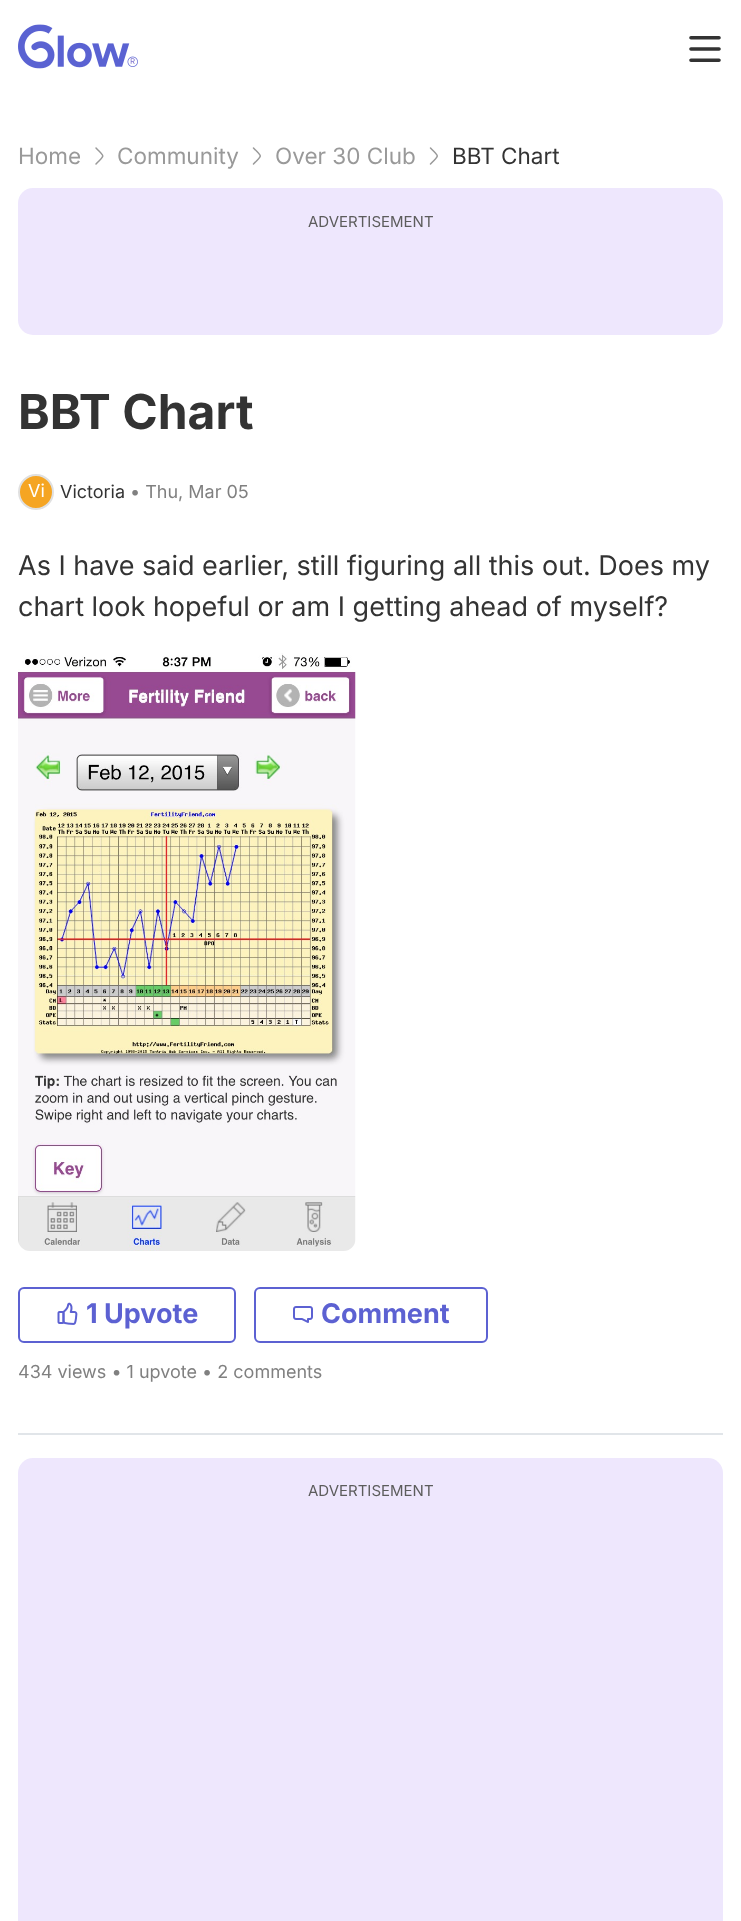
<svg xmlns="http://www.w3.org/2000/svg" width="741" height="1921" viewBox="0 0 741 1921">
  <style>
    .t1 { font: 22.5px Inter; fill: #999; }
    .t2 { font: 22.5px Inter; fill: #333; }
    .t3 { font: 15px Inter; fill: #5c5c5c; }
    .t4 { font: bold 48px Inter; fill: #333; }
    .t5 { font: 18px Inter; fill: #fff; }
    .t6 { font: 18px Inter; fill: #333; }
    .t7 { font: 18px Inter; fill: #808080; }
    .t8 { font: 27px Inter; fill: #333; }
    .t9 { font: bold 27px Inter; fill: #5c61d2; }
  </style>
  <rect width="100%" height="100%" fill="#fff"/>
  <image x="18" y="24" width="120" height="45" href="images/1.png"/>
  <image x="689" y="36" width="32" height="26" href="images/2.png"/>
  <text x="18" y="164" class="t1">Home</text>
  <path d="M96 164C105 154.5 105 157.5 96 148" fill="none" stroke="#999" stroke-width="1.5" stroke-linecap="round" stroke-linejoin="round"/>
  <text x="117" y="164" class="t1">Community</text>
  <path d="M253.5 164C262.5 154.5 262.5 157.5 253.5 148" fill="none" stroke="#999" stroke-width="1.5" stroke-linecap="round" stroke-linejoin="round"/>
  <text x="275" y="164" class="t1">Over 30 Club</text>
  <path d="M430.5 164C439.5 154.5 439.5 157.5 430.5 148" fill="none" stroke="#999" stroke-width="1.5" stroke-linecap="round" stroke-linejoin="round"/>
  <text x="452" y="164" class="t2">BBT Chart</text>
  <rect x="18" y="188" width="705" height="147" rx="15" fill="#eee7fd"/>
  <text x="308" y="227" class="t3">ADVERTISEMENT</text>
  <text x="18" y="429" class="t4">BBT Chart</text>
  <circle cx="36" cy="492" r="17" fill="#f5a523" stroke="#e0e0e0" stroke-width="2"/>
  <text x="28" y="497" class="t5">Vi</text>
  <text x="60" y="498" class="t6">Victoria</text>
  <text x="130" y="498" class="t7">• Thu, Mar 05</text>
  <text x="18" y="575" class="t8">As I have said earlier, still figuring all this out. Does my</text>
  <text x="18" y="616" class="t8">chart look hopeful or am I getting ahead of myself?</text>
  <image x="18" y="653" width="338" height="598" href="images/3.png"/>
  <rect x="19" y="1288" width="216" height="54" rx="5" fill="none" stroke="#5c61d2" stroke-width="2"/>
  <image x="57" y="1302" width="21" height="23" href="images/4.png"/>
  <text x="86" y="1323" class="t9">1 Upvote</text>
  <rect x="255" y="1288" width="232" height="54" rx="5" fill="none" stroke="#5c61d2" stroke-width="2"/>
  <image x="293" y="1306" width="20" height="17" href="images/5.png"/>
  <text x="321" y="1323" class="t9">Comment</text>
  <text x="18" y="1378" class="t7">434 views • 1 upvote • 2 comments</text>
  <rect x="18" y="1433" width="705" height="2" fill="#e1e5e9"/>
  <rect x="18" y="1458" width="705" height="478" rx="15" fill="#eee7fd"/>
  <text x="308" y="1496" class="t3">ADVERTISEMENT</text>
</svg>
